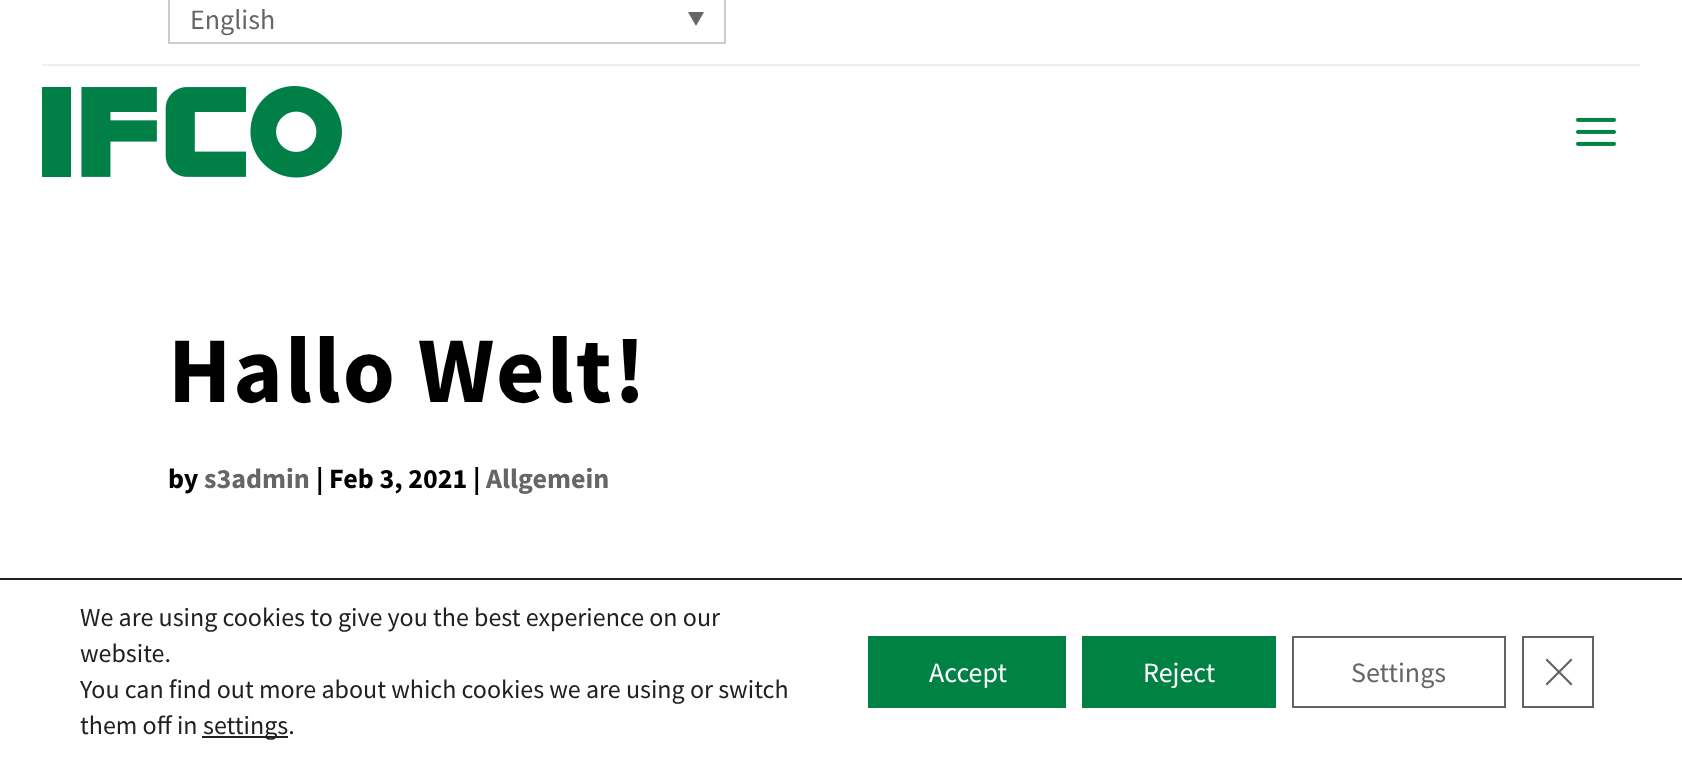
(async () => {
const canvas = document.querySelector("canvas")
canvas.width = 1682
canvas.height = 763
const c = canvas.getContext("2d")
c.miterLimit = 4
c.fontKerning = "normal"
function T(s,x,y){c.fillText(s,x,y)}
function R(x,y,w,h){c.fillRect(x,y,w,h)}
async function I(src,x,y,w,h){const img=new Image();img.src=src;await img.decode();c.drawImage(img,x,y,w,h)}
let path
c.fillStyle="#fff"
R(0,0,1682,763)
c.strokeStyle="#cdcdcd"
c.lineWidth=2
c.strokeRect(169,-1,556,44)
c.font="28px Source Sans Pro"
c.fillStyle="#666"
T("English",190,29)
path = new Path2D("M688 12h16l-8 14z")
c.fill(path)
c.fillStyle="#efefef"
R(42,64,1598,2)
await I("1.png",42,86,300,92)
await I("2.png",1576,117,40,29)
c.letterSpacing="2px"
c.font="bold 94px Source Sans Pro"
c.fillStyle="#000"
T("Hallo Welt!",168,402)
c.letterSpacing="0px"
c.font="bold 28px Source Sans Pro"
T("by",168,488)
c.fillStyle="#666"
T("s3admin",204,488)
c.fillStyle="#000"
T("| Feb 3, 2021 |",316,488)
c.fillStyle="#666"
T("Allgemein",486,488)
c.fillStyle="#202020"
R(0,578,1682,2)
c.font="26px Source Sans Pro"
T("We are using cookies to give you the best experience on our",80,626)
T("website.",80,662)
T("You can find out more about which cookies we are using or switch",80,698)
T("them off in",80,734)
R(202,736,86,2)
T("settings.",203,734)
c.fillStyle="#008244"
R(868,636,198,72)
c.font="28px Source Sans Pro"
c.fillStyle="#fff"
T("Accept",929,682)
c.fillStyle="#008244"
R(1082,636,194,72)
c.fillStyle="#fff"
T("Reject",1143,682)
c.strokeStyle="#636363"
c.strokeRect(1293,637,212,70)
c.fillStyle="#666"
T("Settings",1351,682)
c.strokeStyle="#626262"
c.strokeRect(1523,637,70,70)
c.fillStyle="#626262"
path = new Path2D("M1571 658.5l1.5 1.5l-25.5 25.5l-1.5-1.5z")
c.fill(path)
path = new Path2D("M1545.5 660l1.5-1.5l25.5 25.5l-1.5 1.5z")
c.fill(path)
})()
